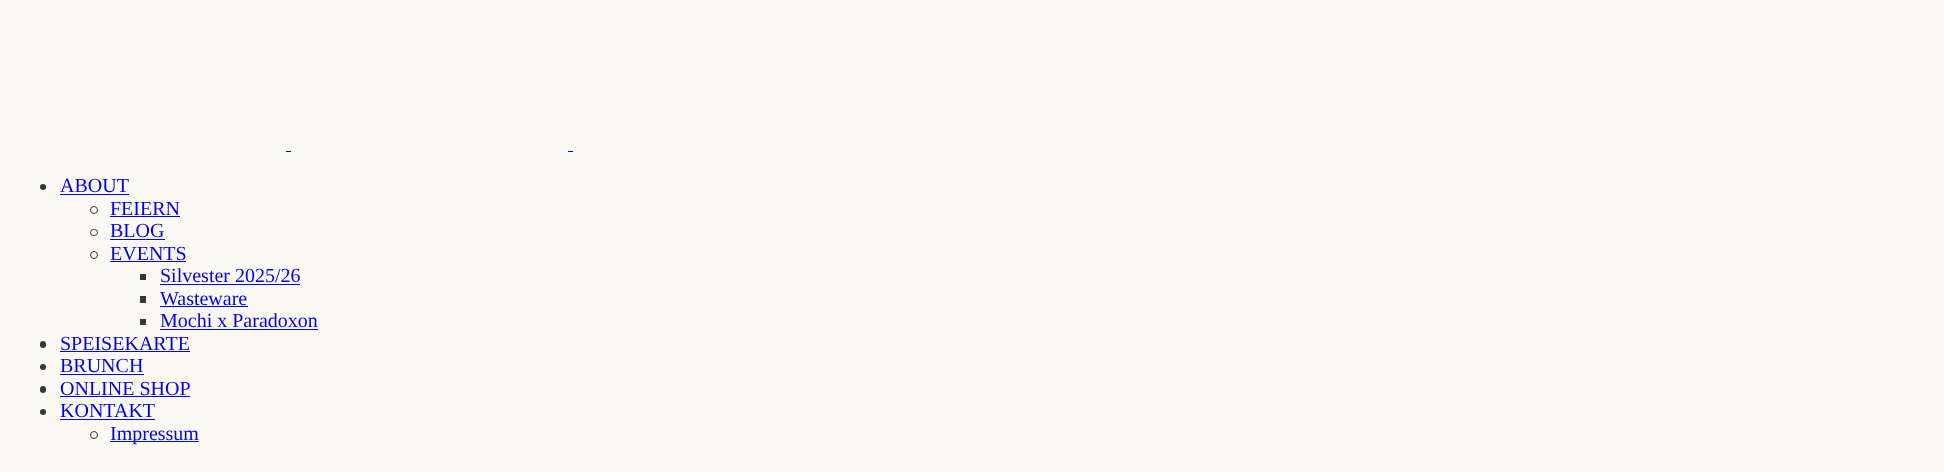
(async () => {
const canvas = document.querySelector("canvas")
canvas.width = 1944
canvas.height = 472
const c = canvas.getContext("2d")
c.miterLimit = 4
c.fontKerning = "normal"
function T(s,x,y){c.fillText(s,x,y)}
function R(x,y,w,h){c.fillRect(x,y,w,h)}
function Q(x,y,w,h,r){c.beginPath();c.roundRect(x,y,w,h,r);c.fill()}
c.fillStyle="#faf9f3"
R(0,0,1944,472)
c.fillStyle="#00e"
R(286,151,5,1)
R(568,151,5,1)
c.fillStyle="#373737"
c.beginPath()
c.arc(43,187,3,0,7)
c.fill()
c.font="20px Liberation Serif"
c.fillStyle="#00e"
T("ABOUT",60,192)
R(60,194,69,1)
c.beginPath()
c.arc(94,210,3.5,0,7)
c.strokeStyle="#373737"
c.stroke()
T("FEIERN",110,215)
R(110,216,70,1)
c.beginPath()
c.roundRect(90.5,229.5,7,6,3)
c.stroke()
T("BLOG",110,237)
R(110,239,55,1)
c.beginPath()
c.arc(94,255,3.5,0,7)
c.stroke()
T("EVENTS",110,260)
R(110,261,76,1)
c.fillStyle="#373737"
R(140,274,6,6)
c.fillStyle="#00e"
T("Silvester 2025/26",160,282)
R(160,284,140,1)
c.fillStyle="#373737"
R(140,296,6,7)
c.fillStyle="#00e"
T("Wasteware",160,305)
R(160,306,88,1)
c.fillStyle="#373737"
R(140,319,6,6)
c.fillStyle="#00e"
T("Mochi x Paradoxon",160,327)
R(160,329,158,1)
c.fillStyle="#373737"
Q(40,341,6,7,3)
c.fillStyle="#00e"
T("SPEISEKARTE",60,350)
R(60,351,130,1)
c.fillStyle="#373737"
c.beginPath()
c.arc(43,367,3,0,7)
c.fill()
c.fillStyle="#00e"
T("BRUNCH",60,372)
R(60,374,84,1)
c.fillStyle="#373737"
Q(40,386,6,7,3)
c.fillStyle="#00e"
T("ONLINE SHOP",60,395)
R(60,396,130,1)
c.fillStyle="#373737"
c.beginPath()
c.arc(43,412,3,0,7)
c.fill()
c.fillStyle="#00e"
T("KONTAKT",60,417)
R(60,419,95,1)
c.beginPath()
c.arc(94,435,3.5,0,7)
c.stroke()
R(110,441,89,1)
T("Impressum",110,440)
})()
